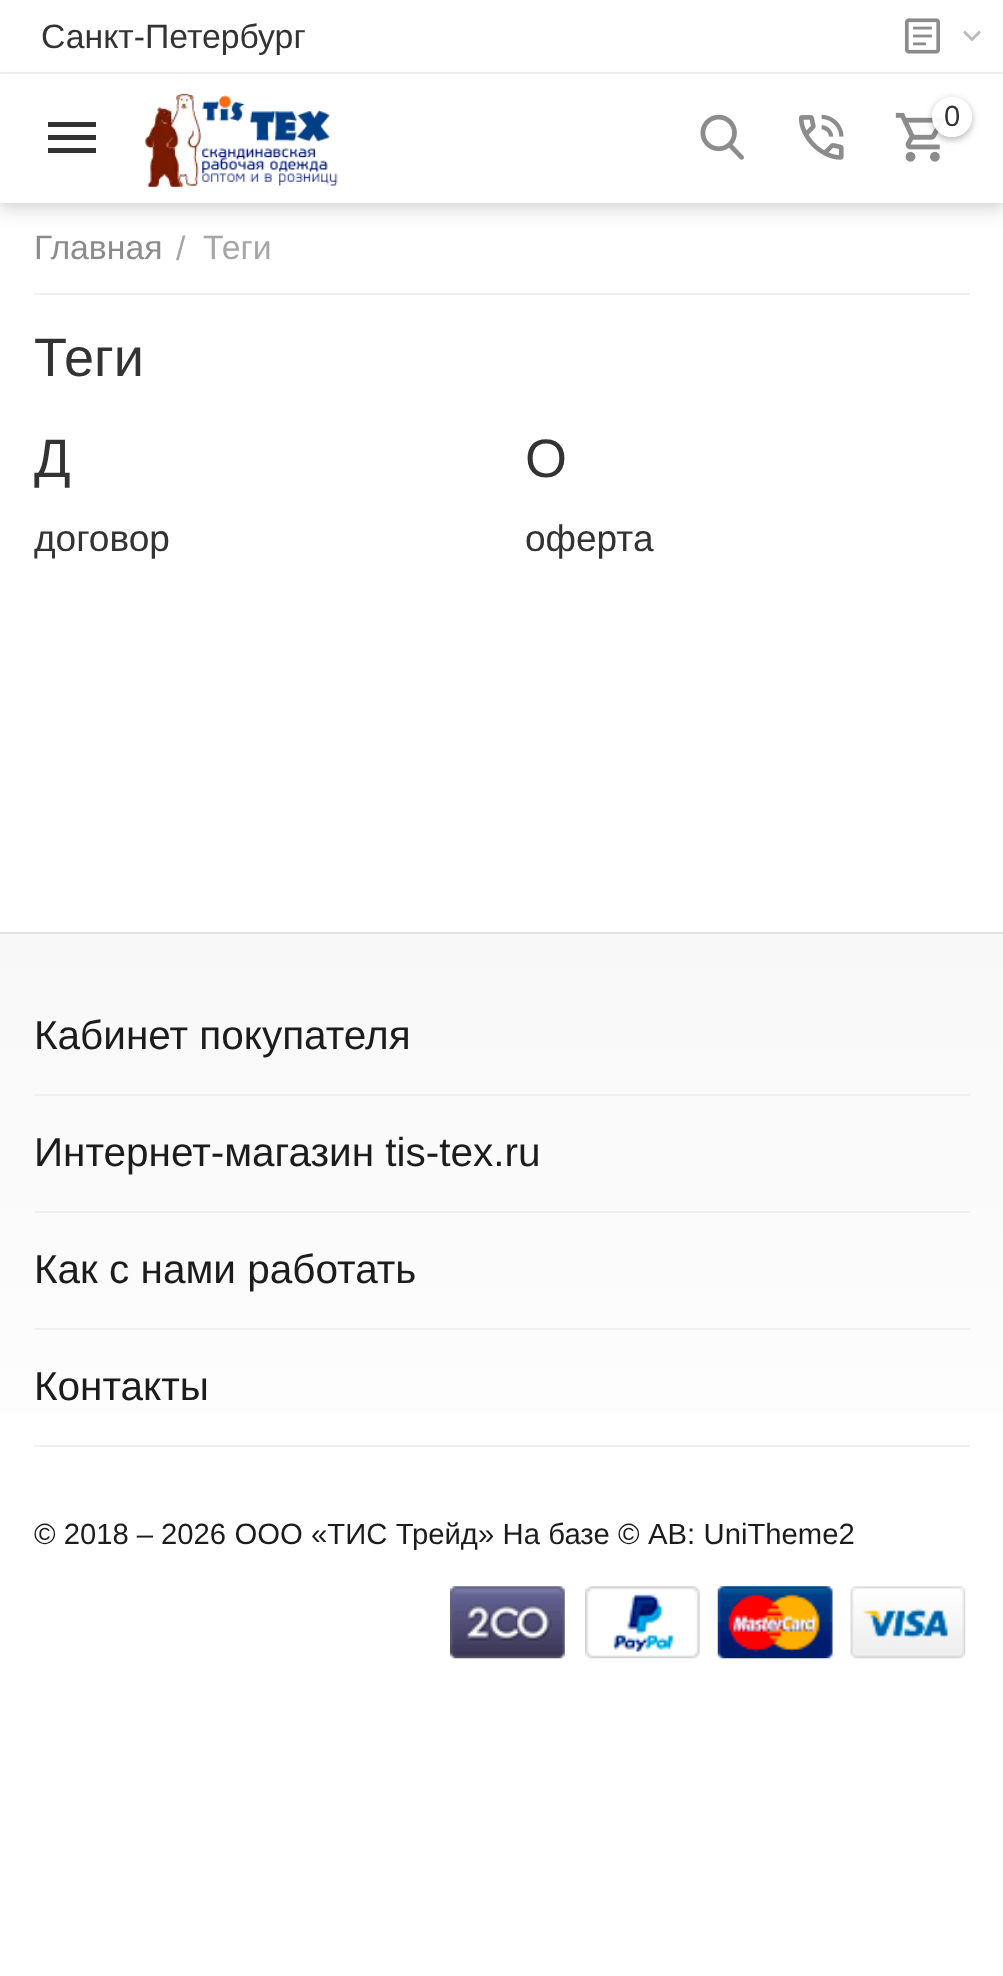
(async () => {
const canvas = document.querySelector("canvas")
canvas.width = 1003
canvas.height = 1976
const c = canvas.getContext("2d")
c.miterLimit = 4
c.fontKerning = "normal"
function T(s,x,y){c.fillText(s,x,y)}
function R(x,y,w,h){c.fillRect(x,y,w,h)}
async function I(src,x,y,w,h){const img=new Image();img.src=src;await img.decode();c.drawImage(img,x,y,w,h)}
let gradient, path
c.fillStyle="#fff"
R(0,0,1003,1976)
c.fillStyle="#f0f0f0"
R(0,72,1003,2)
c.font="33.75px Liberation Sans"
c.fillStyle="#333"
T("Санкт-Петербург",41,48)
await I("1.png",904,18,37,36)
c.fillStyle="#bababa"
path = new Path2D("M979 30.5l-7 7l-7-7l-2 2l9 9l9-9z")
c.fill(path)
c.save()
path = new Path2D("M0 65h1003v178h-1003zm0 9h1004v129h-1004z")
c.clip(path,"evenodd")
c.fillStyle="#0000000d"
c.filter="blur(8px)"
c.beginPath()
c.rect(0,90,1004,128)
c.fill()
c.filter="none"
c.restore()
c.save()
path = new Path2D("M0 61h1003v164h-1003zm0 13h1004v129h-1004z")
c.clip(path,"evenodd")
c.fillStyle="#0000001a"
c.filter="blur(5.5px)"
c.beginPath()
c.rect(0,79,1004,128)
c.fill()
c.filter="none"
c.restore()
c.fillStyle="#333"
path = new Path2D("M48 153h48v-5h-48zm0-13h48v-5h-48zm0-18v5h48v-5z")
c.fill(path)
await I("2.png",144,93,194,94)
await I("3.png",700,114,44,46)
await I("4.png",798,114,46,46)
await I("5.png",895,112,50,50)
c.save()
path = new Path2D("M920 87h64v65h-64zm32 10c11 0 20 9 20 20c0 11-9 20-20 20c-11 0-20-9-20-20c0-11 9-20 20-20z")
c.clip(path,"evenodd")
c.fillStyle="#33333359"
c.filter="blur(3.5px)"
c.beginPath()
c.roundRect(932,99,40,41,20)
c.fill()
c.filter="none"
c.restore()
c.fillStyle="#fffffff2"
c.beginPath()
c.arc(952,117,20,0,7)
c.fill()
c.font="29.25px Liberation Sans"
c.fillStyle="#333"
T("0",944,126)
c.fillStyle="#f0f0f0"
R(34,293,936,2)
c.font="33.75px Liberation Sans"
c.fillStyle="#8c8c8c"
T("Главная",34,259)
c.fillStyle="#a6a6a6"
T("/",176,260)
T("Теги",203,259)
c.font="54px Liberation Sans"
c.fillStyle="#333"
T("Теги",34,376)
T("Д",34,477)
c.font="37px Liberation Sans"
T("договор",34,551)
c.font="54px Liberation Sans"
T("О",525,477)
c.font="37px Liberation Sans"
T("оферта",525,551)
gradient = c.createLinearGradient(502,932,502,1681)
gradient.addColorStop(0,"#f8f8f8")
gradient.addColorStop(1,"#fff")
c.fillStyle = gradient
R(0,934,1003,479)
c.fillStyle="#e3e3e3"
R(0,932,1003,2)
c.fillStyle="#f0f0f0"
R(34,1094,936,2)
c.font="40.5px Liberation Sans"
c.fillStyle="#1c1c1c"
T("Кабинет покупателя",34,1049)
c.fillStyle="#f0f0f0"
R(34,1211,936,2)
c.fillStyle="#1c1c1c"
T("Интернет-магазин tis-tex.ru",34,1166)
c.fillStyle="#f0f0f0"
R(34,1328,936,2)
c.fillStyle="#1c1c1c"
T("Как с нами работать",34,1283)
c.fillStyle="#f0f0f0"
R(34,1445,936,2)
c.fillStyle="#1c1c1c"
T("Контакты",34,1400)
c.font="29.25px Liberation Sans"
T("© 2018 –",34,1544)
c.wordSpacing="0.25px"
T("2026 ООО «ТИС Трейд» На базе © AB: UniTheme2",161,1544)
await I("6.png",450,1586,115,73)
await I("7.png",585,1586,115,73)
await I("8.png",717,1586,116,73)
await I("9.png",850,1586,116,73)
})()
